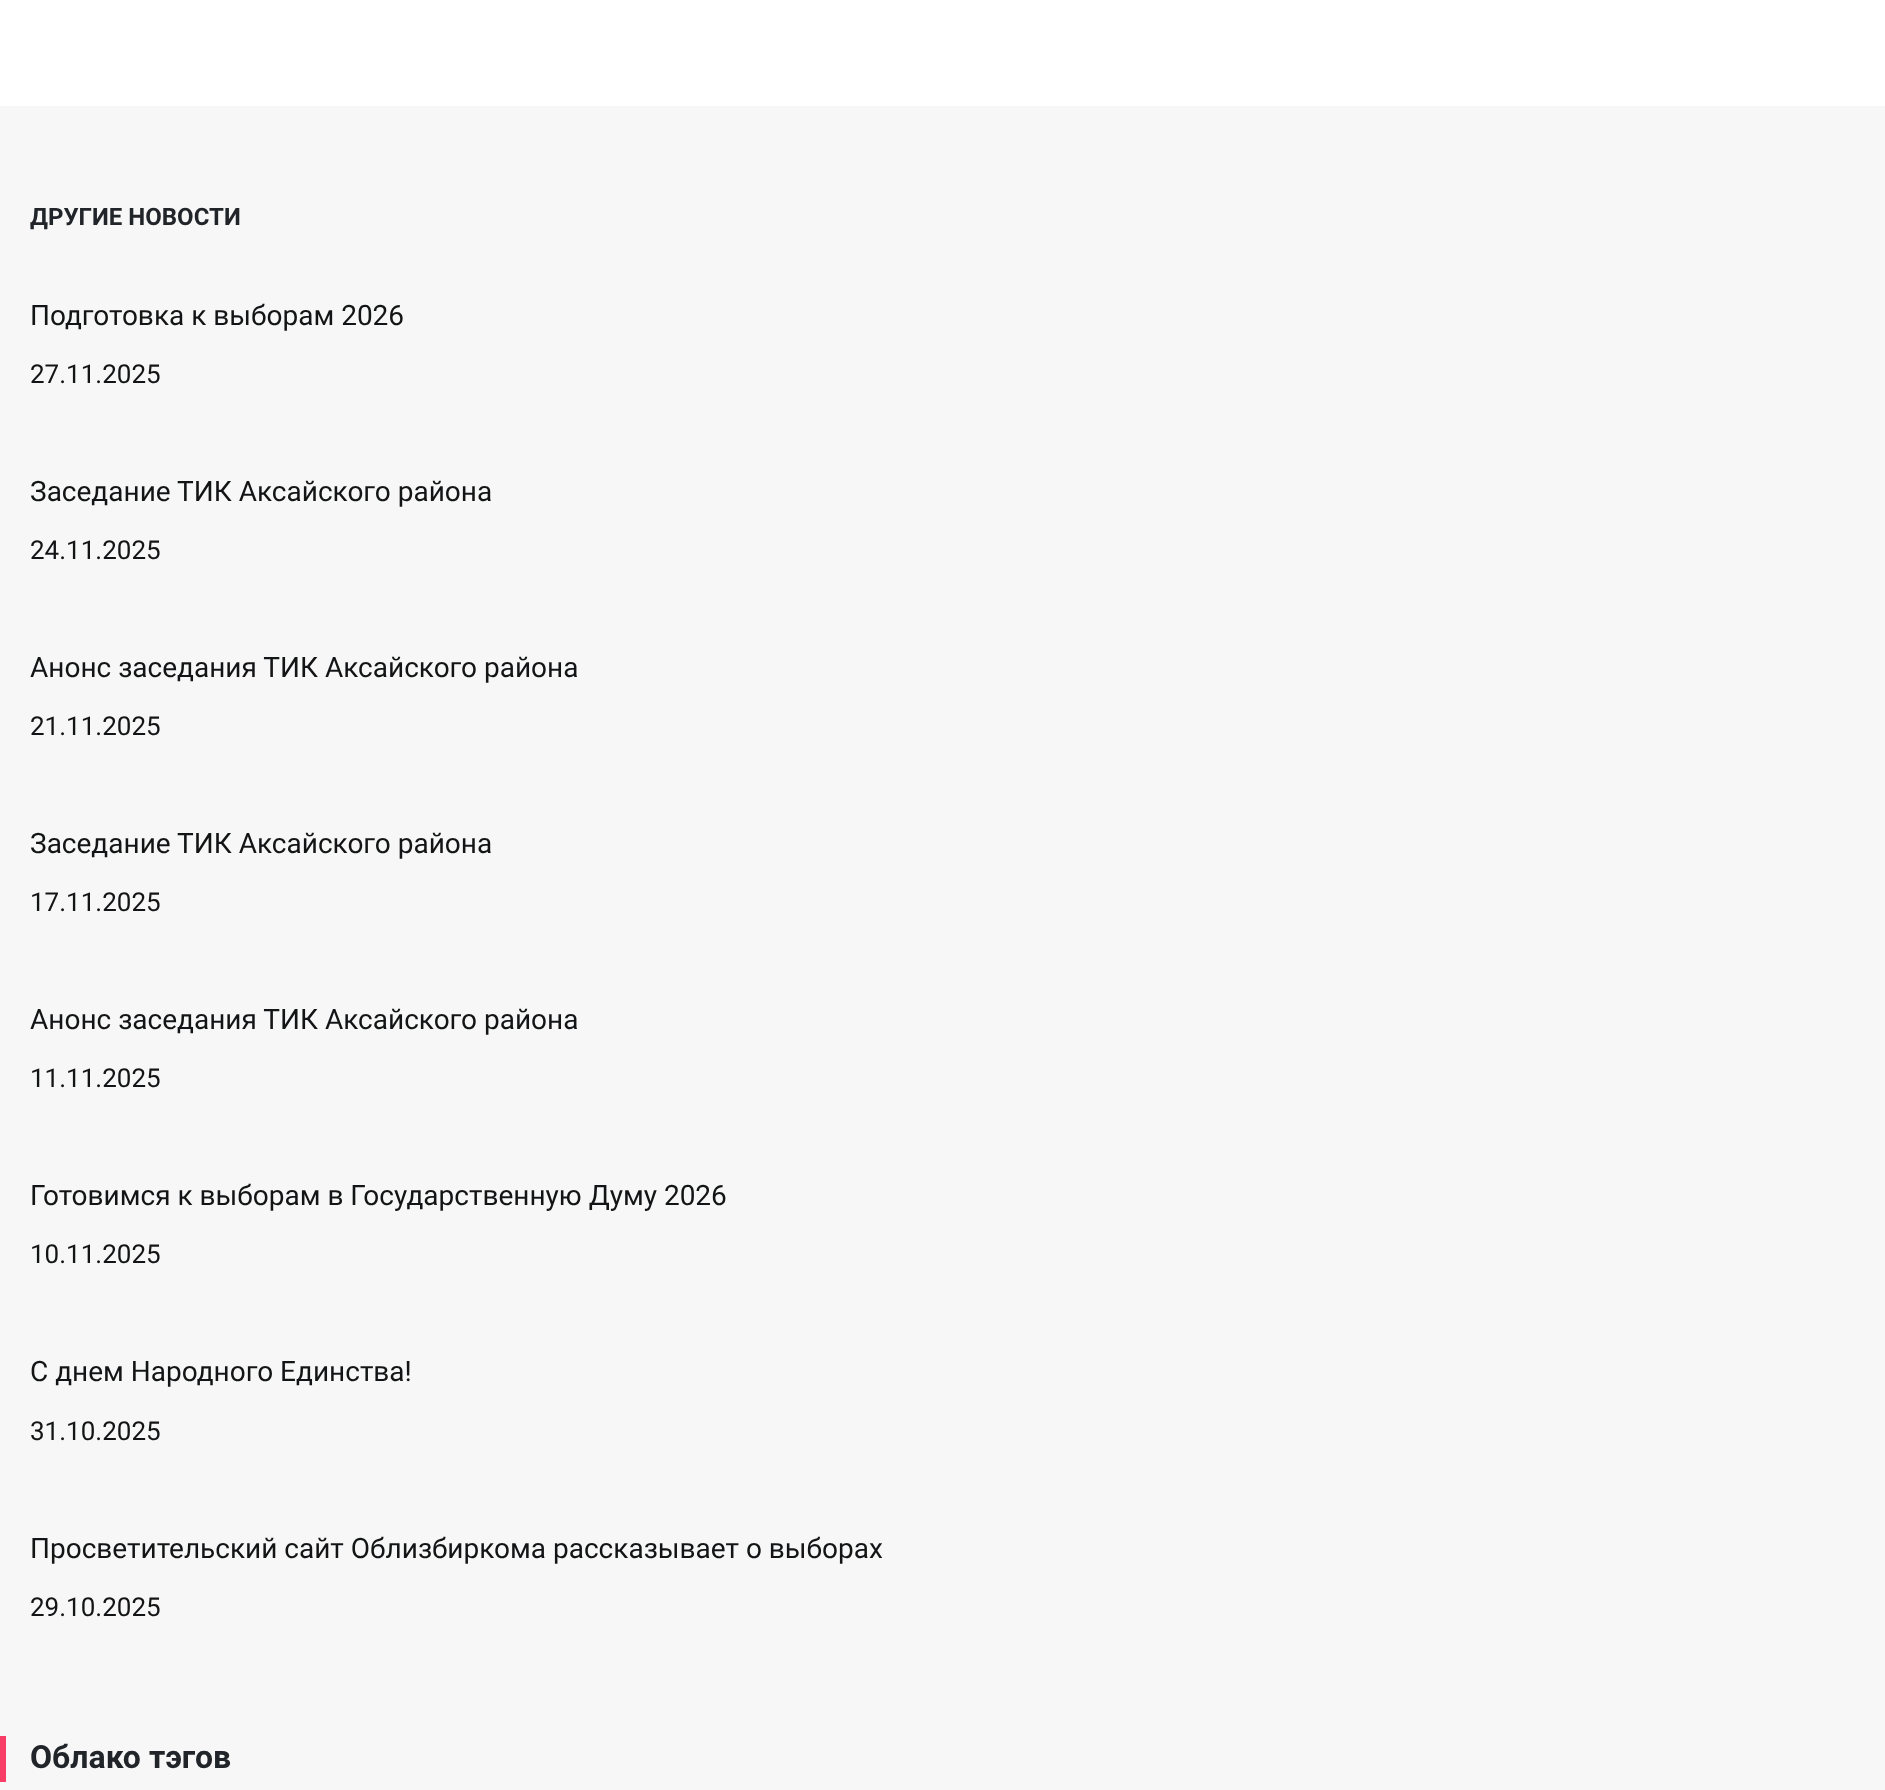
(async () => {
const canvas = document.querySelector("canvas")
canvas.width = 1885
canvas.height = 1790
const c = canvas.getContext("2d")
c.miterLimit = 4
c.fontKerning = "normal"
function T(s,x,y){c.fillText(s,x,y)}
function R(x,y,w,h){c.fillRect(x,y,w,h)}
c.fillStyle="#fff"
R(0,0,1885,1790)
c.fillStyle="#f7f7f7"
R(0,106,1885,1684)
c.font="bold 24px Roboto"
c.fillStyle="#212529"
T("ДРУГИЕ НОВОСТИ",30,225)
c.font="28px Roboto"
c.fillStyle="#131415"
T("Подготовка к выборам 2026",30,325)
c.font="26px Roboto"
T("27.11.2025",30,383)
c.font="28px Roboto"
T("Заседание ТИК Аксайского района",30,501)
c.font="26px Roboto"
T("24.11.2025",30,559)
c.font="28px Roboto"
T("Анонс заседания ТИК Аксайского района",30,677)
c.font="26px Roboto"
T("21.11.2025",30,735)
c.font="28px Roboto"
T("Заседание ТИК Аксайского района",30,853)
c.font="26px Roboto"
T("17.11.2025",30,911)
c.font="28px Roboto"
T("Анонс заседания ТИК Аксайского района",30,1029)
c.font="26px Roboto"
T("11.11.2025",30,1087)
c.font="28px Roboto"
T("Готовимся к выборам в Государственную Думу 2026",30,1205)
c.font="26px Roboto"
T("10.11.2025",30,1263)
c.font="28px Roboto"
T("С днем Народного Единства!",30,1381)
c.font="26px Roboto"
T("31.10.2025",30,1440)
c.font="28px Roboto"
T("Просветительский сайт Облизбиркома рассказывает о выборах",30,1558)
c.font="26px Roboto"
T("29.10.2025",30,1616)
c.fillStyle="#f83d66"
R(0,1736,6,46)
c.font="bold 32px Roboto"
c.fillStyle="#212529"
T("Облако тэгов",30,1768)
})()
